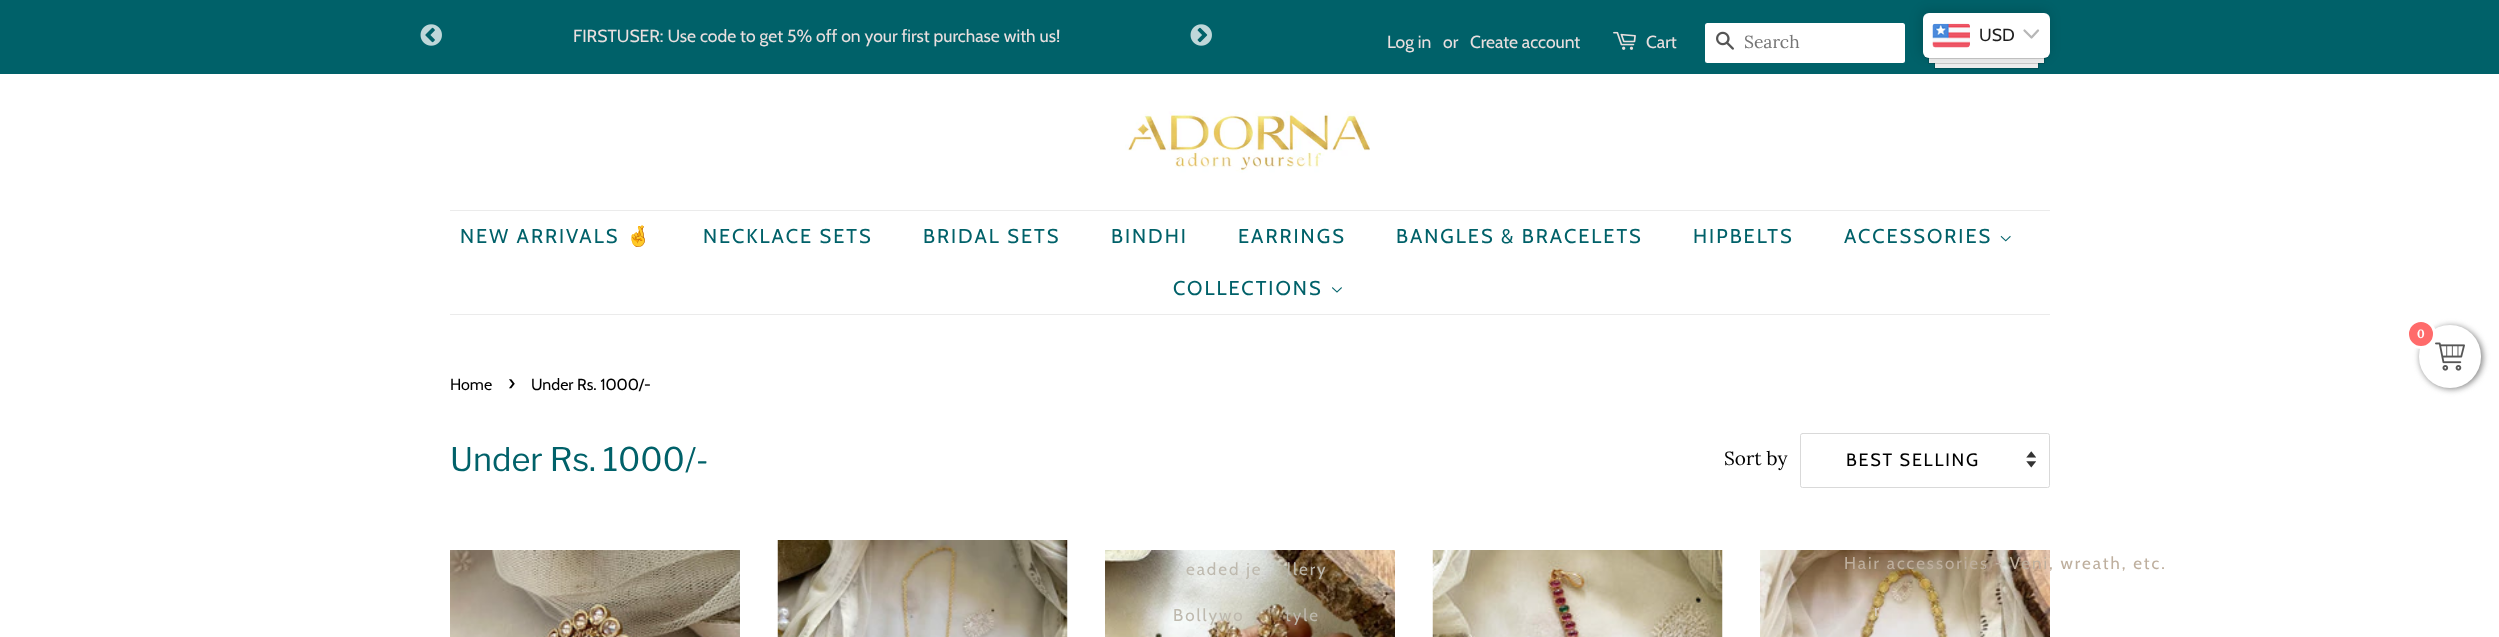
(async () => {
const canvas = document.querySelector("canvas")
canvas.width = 2499
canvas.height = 637
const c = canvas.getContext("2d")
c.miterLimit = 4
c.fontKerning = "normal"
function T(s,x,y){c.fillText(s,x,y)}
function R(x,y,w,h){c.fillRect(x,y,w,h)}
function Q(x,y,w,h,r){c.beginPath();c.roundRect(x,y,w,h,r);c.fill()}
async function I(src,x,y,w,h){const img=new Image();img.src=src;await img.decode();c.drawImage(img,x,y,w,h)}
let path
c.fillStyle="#fff"
R(0,0,2499,637)
c.fillStyle="#006169"
R(0,0,2499,74)
await I("1.png",420,24,22,22)
c.font="17.5px Cabin"
c.fillStyle="#e9dfdf"
T("FIRSTUSER: Use code to get 5% off on your first purchase with us!",573,42)
await I("2.png",1190,24,22,22)
T("Log in",1387,48)
T("or",1443,48)
T("Create account",1470,48)
await I("3.png",1613,31,23,19)
T("Cart",1646,48)
c.fillStyle="#fff"
Q(1705,23,200,40,2.5)
await I("4.png",1716,31,18,19)
c.font="17.5px Lora"
c.fillStyle="#757575"
T("Search",1744,48)
c.fillStyle="#00000026"
c.filter="blur(0.5px)"
c.beginPath()
c.rect(1934,46,105,23)
c.fill()
c.filter="none"
c.fillStyle="#eee"
R(1935,63,103,5)
c.fillStyle="#00000026"
c.filter="blur(0.5px)"
c.beginPath()
c.roundRect(1928,29,117,35,1)
c.fill()
c.filter="none"
c.fillStyle="#eee"
path = new Path2D("M1929 58v5h115v-6z")
c.fill(path)
c.fillStyle="#00000026"
c.filter="blur(0.5px)"
c.beginPath()
c.roundRect(1923,14,127,45,6)
c.fill()
c.filter="none"
c.filter="blur(6px)"
c.beginPath()
c.roundRect(1921,11,128,45,6)
c.fill()
c.filter="none"
c.fillStyle="#fff"
Q(1923,13,127,45,6)
await I("5.png",1932,23,38,25)
c.font="17.5px Cabin"
c.fillStyle="#1e1e1e"
T("USD",1979,41)
path = new Path2D("M2024.5 30.5l7 7l6.5-7")
c.strokeStyle="#b7b7b7"
c.lineWidth=2.3
c.lineCap="round"
c.lineJoin="round"
c.stroke(path)
await I("6.png",1125,111,245,62)
c.fillStyle="#ebebeb"
R(450,210,1600,1)
R(450,314,1600,1)
c.letterSpacing="2px"
c.font="20px Cabin"
c.fillStyle="#006169"
T("NEW ARRIVALS",460,243)
c.font="20px Noto Color Emoji"
T("🤞",626,243)
c.font="20px Cabin"
T("NECKLACE SETS",703,243)
T("BRIDAL SETS",923,243)
T("BINDHI",1111,243)
T("EARRINGS",1238,243)
T("BANGLES & BRACELETS",1396,243)
T("HIPBELTS",1693,243)
T("ACCESSORIES",1844,243)
await I("7.png",2000,235,11,7)
await I("15.png",1760,550,290,87)
c.font="17px Cabin"
c.fillStyle="#beaf9e"
T("Hair accessories - Veni, wreath, etc.",1844,569)
c.fillStyle="#d6ccbe"
T("r",1874,616)
c.font="20px Cabin"
c.fillStyle="#006169"
T("COLLECTIONS",1173,295)
await I("8.png",1332,287,10,6)
await I("13.png",1105,550,290,87)
c.font="17px Cabin"
c.fillStyle="#beb9ae"
T("eaded je",1186,575)
T("llery",1287,575)
T("Bollywo",1173,621)
T("tyle",1285,621)
c.fillStyle="#808080"
c.filter="blur(3px)"
c.beginPath()
c.roundRect(2420,326,63,63,31.5)
c.fill()
c.filter="none"
c.fillStyle="#fff"
Q(2419,325,62,63,31)
await I("9.png",2435,342,30,29)
c.fillStyle="#ff6b6b"
c.beginPath()
c.arc(2421,334,13.5,0,7)
c.fill()
c.strokeStyle="#fff"
c.lineWidth=3
c.stroke()
c.letterSpacing="0px"
c.font="bold 12px Lora"
c.fillStyle="#fff"
T("0",2417,338)
c.font="16px Cabin"
c.fillStyle="#000"
T("Home",450,390)
c.font="22px Cabin"
T("›",508,390)
c.font="16px Cabin"
T("Under Rs. 1000/-",531,390)
c.font="32.5px Libre Franklin"
c.fillStyle="#006169"
T("Under Rs. 1000/-",450,471)
c.font="19px Lora"
c.fillStyle="#000"
T("Sort by",1724,465)
await I("10.png",2026,451,10,17)
c.beginPath()
c.roundRect(1800.5,433.5,249,54,2)
c.strokeStyle="#d9d9d9"
c.lineWidth=1
c.lineJoin="miter"
c.stroke()
c.letterSpacing="1.75px"
c.font="18px Cabin"
T("BEST SELLING",1846,466)
await I("11.png",450,550,290,87)
await I("12.png",777,540,291,97)
await I("14.png",1432,550,291,87)
})()
